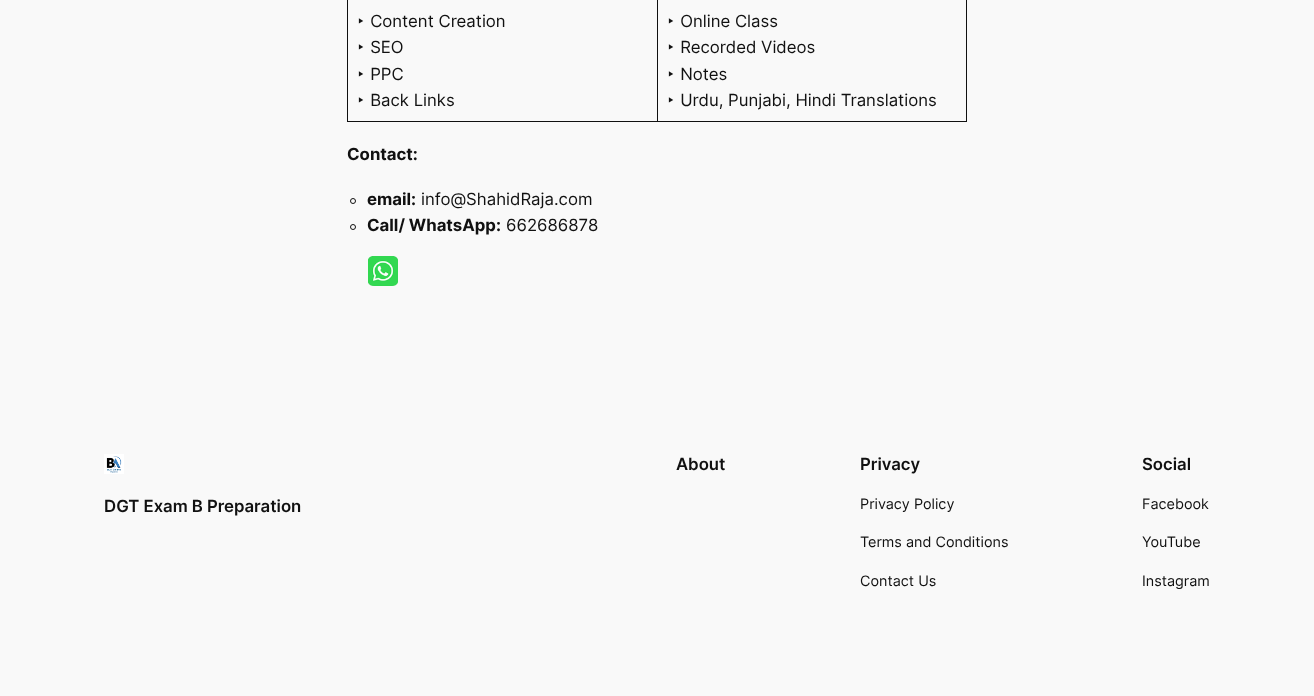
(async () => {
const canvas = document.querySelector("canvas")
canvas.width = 1314
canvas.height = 696
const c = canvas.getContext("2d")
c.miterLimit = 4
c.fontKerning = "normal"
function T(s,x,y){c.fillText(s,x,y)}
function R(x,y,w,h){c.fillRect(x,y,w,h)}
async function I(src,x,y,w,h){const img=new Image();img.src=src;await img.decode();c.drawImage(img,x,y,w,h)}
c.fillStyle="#f9f9f9"
R(0,0,1314,696)
c.fillStyle="#111"
R(966,0,1,122)
R(657,121,310,1)
R(657,0,1,122)
R(347,121,311,1)
R(347,0,1,122)
c.font="16.75px Inter"
T("‣ Content Creation",356,27)
T("‣ SEO",356,53)
T("‣ PPC",356,80)
T("‣ Back Links",356,106)
T("‣ Online Class",666,27)
T("‣ Recorded Videos",666,53)
T("‣ Notes",666,80)
T("‣ Urdu, Punjabi, Hindi Translations",666,106)
c.font="bold 16.75px Inter"
T("Contact:",347,160)
c.beginPath()
c.arc(353,201,2.5,0,7)
c.strokeStyle="#111"
c.stroke()
T("email:",367,205)
c.font="16.75px Inter"
T("info@ShahidRaja.com",421,205)
c.beginPath()
c.arc(353,227,2.5,0,7)
c.stroke()
c.font="bold 16.75px Inter"
T("Call/ WhatsApp:",367,231)
c.font="16.75px Inter"
T("662686878",506,231)
await I("1.png",368,256,30,30)
await I("2.png",104,454,20,20)
c.font="600 16.75px Inter"
T("DGT Exam B Preparation",104,512)
T("About",676,470)
T("Privacy",860,470)
c.font="14.4px Inter"
T("Privacy Policy",860,509)
T("Terms and Conditions",860,547)
T("Contact Us",860,586)
c.font="600 16.75px Inter"
T("Social",1142,470)
c.font="14.4px Inter"
T("Facebook",1142,509)
T("YouTube",1142,547)
T("Instagram",1142,586)
})()
